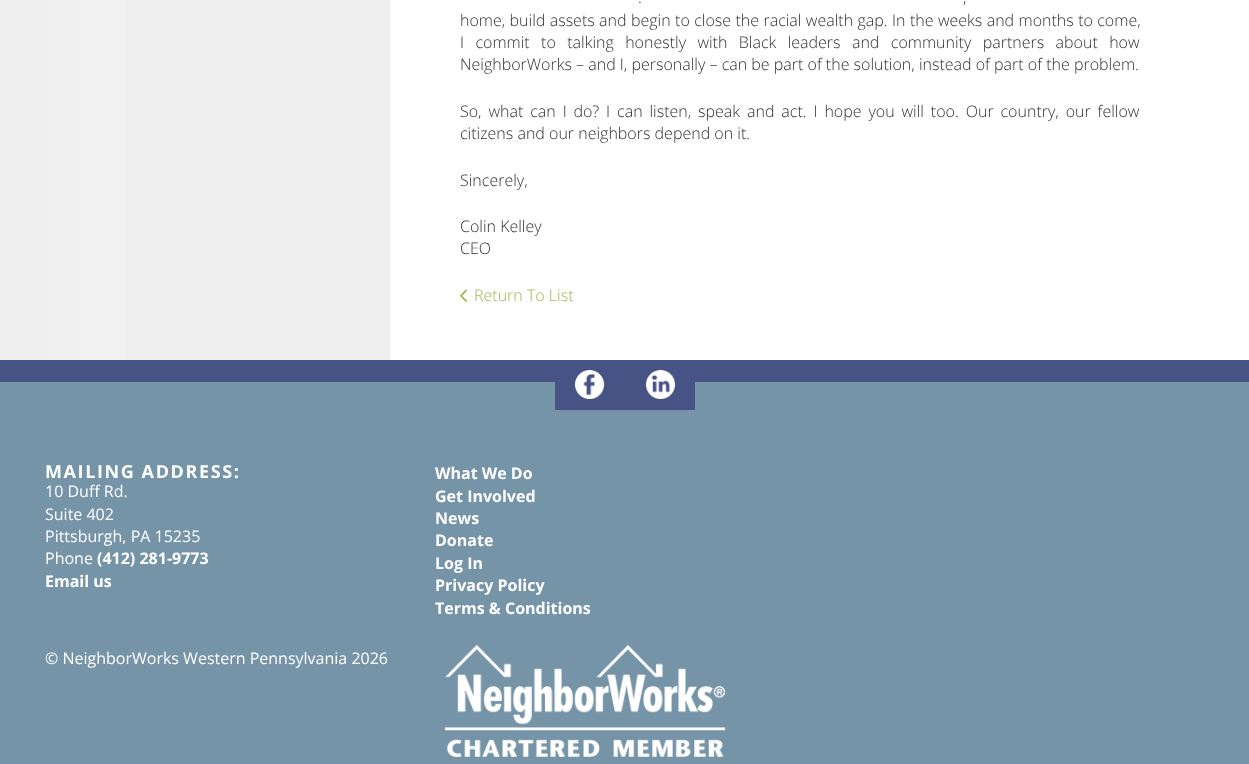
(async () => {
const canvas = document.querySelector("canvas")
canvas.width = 1249
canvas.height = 764
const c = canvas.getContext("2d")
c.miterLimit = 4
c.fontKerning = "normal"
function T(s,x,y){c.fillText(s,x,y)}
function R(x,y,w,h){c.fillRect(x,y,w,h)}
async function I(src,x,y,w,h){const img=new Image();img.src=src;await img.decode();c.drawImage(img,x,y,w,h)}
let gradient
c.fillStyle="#fff"
R(0,0,1249,764)
gradient = c.createLinearGradient(0,-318,1249,-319)
gradient.addColorStop(.02,"#efefef")
gradient.addColorStop(.53,"#fff")
c.fillStyle = gradient
R(0,0,563,360)
c.fillStyle="#efefef"
R(125,0,265,360)
c.fillStyle="#fff"
R(390,0,173,360)
c.wordSpacing="1px"
c.font="300 16px Open Sans"
c.fillStyle="#303030"
T(".",638,3)
T(",",963,3)
c.wordSpacing="0.25px"
T("home, build assets and begin to close the racial wealth gap. In the weeks and months to come,",460,26)
c.wordSpacing="7.25px"
T("I commit to talking honestly with Black leaders and community partners about how",460,48)
c.wordSpacing="0px"
T("NeighborWorks – and I, personally – can be part of the solution, instead of part of the problem.",460,70)
c.wordSpacing="2.75px"
T("So, what can I do? I can listen, speak and act. I hope you will too. Our country, our fellow",460,117)
c.wordSpacing="0px"
T("citizens and our neighbors depend on it.",460,139)
T("Sincerely,",460,186)
T("Colin Kelley",460,232)
T("CEO",460,254)
await I("1.png",460,289,7,13)
c.fillStyle="#9fb752"
T("Return To List",474,301)
c.fillStyle="#475285"
R(0,360,1249,22)
c.fillStyle="#7694a7"
R(0,382,1249,382)
c.fillStyle="#475285"
R(555,382,140,28)
await I("2.png",575,370,30,29)
await I("3.png",646,370,29,29)
c.letterSpacing="1.6px"
c.font="bold 18px Open Sans"
c.fillStyle="#fff"
T("MAILING ADDRESS:",45,478)
c.letterSpacing="0px"
c.font="16px Open Sans"
T("10 Duff Rd.",45,497)
T("Suite 402",45,520)
T("Pittsburgh, PA 15235",45,542)
T("Phone",45,564)
c.font="bold 16px Open Sans"
T("(412) 281-9773",97,564)
T("Email us",45,587)
c.font="16px Open Sans"
T("© NeighborWorks Western Pennsylvania 2026",45,664)
c.font="bold 16px Open Sans"
T("What We Do",435,479)
T("Get Involved",435,502)
T("News",435,524)
T("Donate",435,546)
T("Log In",435,569)
T("Privacy Policy",435,591)
T("Terms & Conditions",435,614)
await I("4.png",445,645,280,112)
})()
